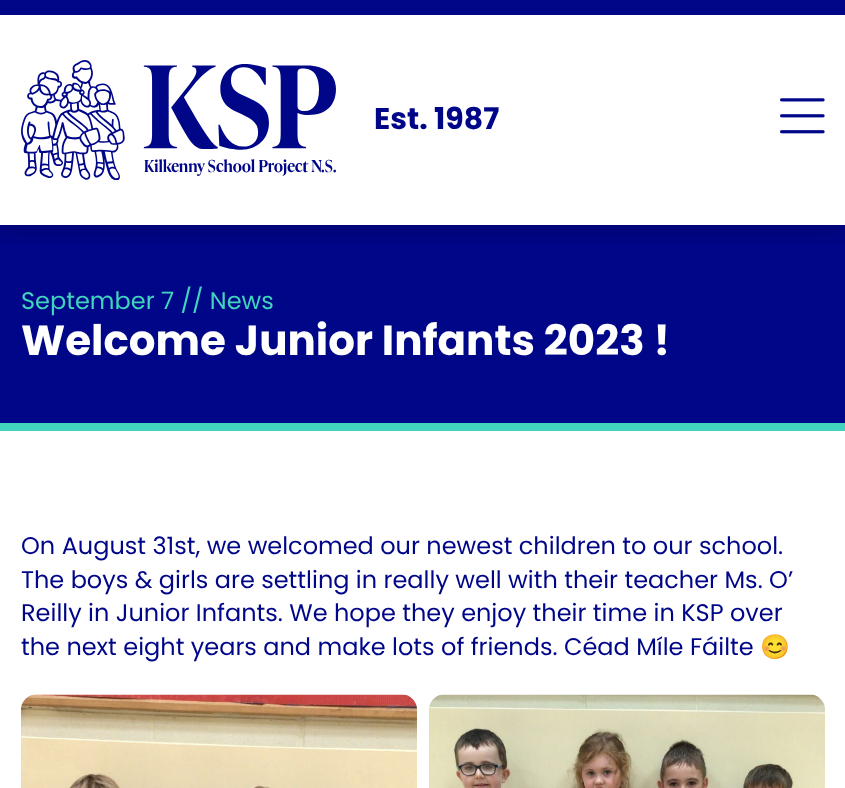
(async () => {
const canvas = document.querySelector("canvas")
canvas.width = 845
canvas.height = 788
const c = canvas.getContext("2d")
c.miterLimit = 4
c.fontKerning = "normal"
function T(s,x,y){c.fillText(s,x,y)}
function R(x,y,w,h){c.fillRect(x,y,w,h)}
async function I(src,x,y,w,h){const img=new Image();img.src=src;await img.decode();c.drawImage(img,x,y,w,h)}
c.fillStyle="#fff"
R(0,0,845,788)
c.fillStyle="#000688"
R(0,225,845,198)
c.save()
c.beginPath()
c.rect(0,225,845,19)
c.clip()
c.fillStyle="#00000033"
c.filter="blur(11px)"
c.beginPath()
c.rect(0,5,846,225)
c.fill()
c.filter="none"
c.restore()
R(0,0,845,15)
await I("1.png",21,60,315,120)
c.font="bold 30px Poppins"
T("Est. 1987",374,129)
await I("2.png",780,98,45,36)
c.fillStyle="#41d3bd"
R(0,423,845,8)
c.font="24px Poppins"
T("September 7 // News",21,309)
c.font="bold 42px Poppins"
c.fillStyle="#fff"
T("Welcome Junior Infants 2023 !",21,355)
c.font="24px Poppins"
c.fillStyle="#000688"
T("On August 31st, we welcomed our newest children to our school.",21,554)
T("The boys & girls are settling in really well with their teacher Ms. O’",21,588)
T("Reilly in Junior Infants. We hope they enjoy their time in KSP over",21,621)
T("the next eight years and make lots of friends. Céad Míle Fáilte",21,655)
c.font="24px Noto Color Emoji"
T("😊",760,655)
await I("3.png",21,694,396,94)
await I("4.png",429,694,396,94)
})()
